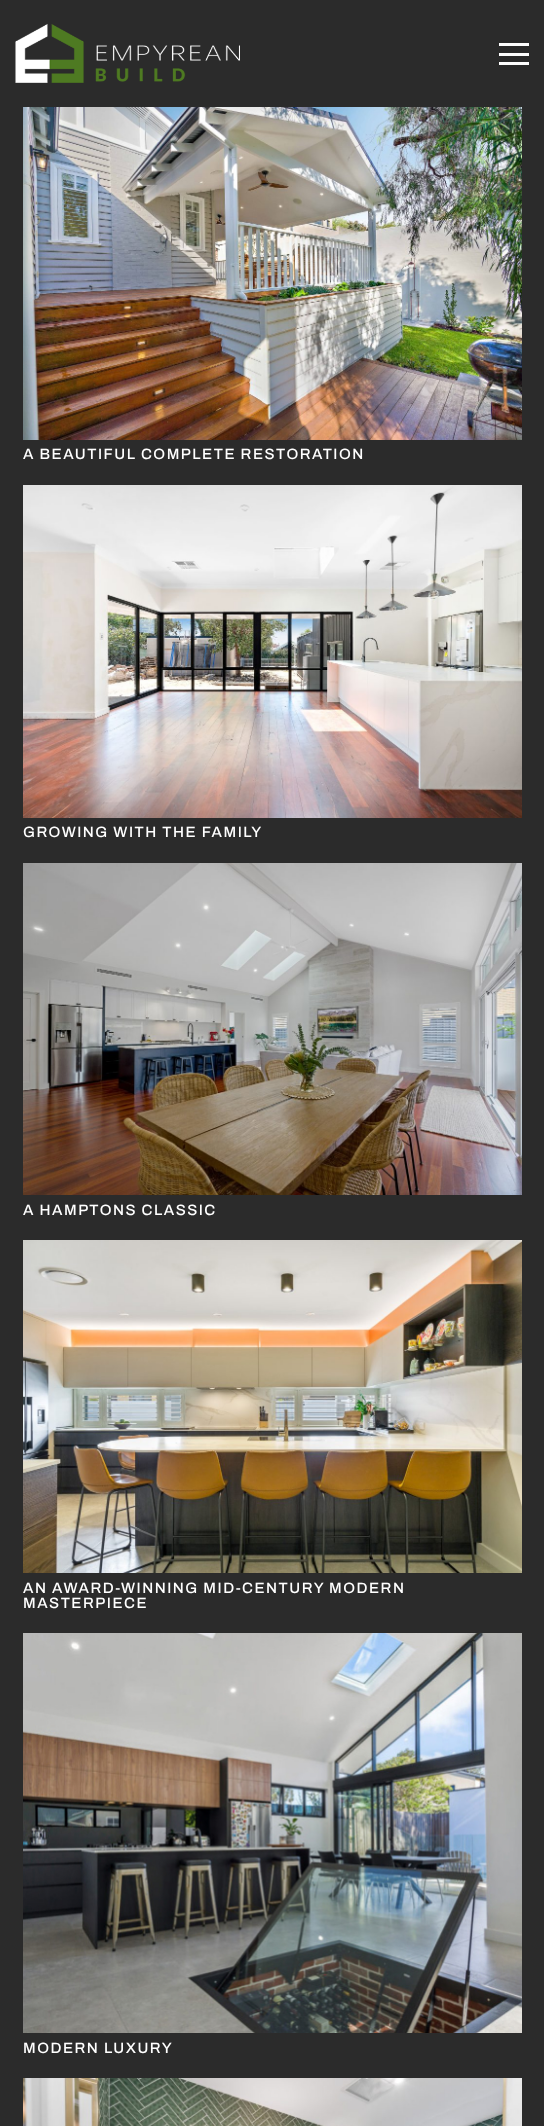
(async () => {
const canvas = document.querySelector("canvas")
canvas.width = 544
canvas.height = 2126
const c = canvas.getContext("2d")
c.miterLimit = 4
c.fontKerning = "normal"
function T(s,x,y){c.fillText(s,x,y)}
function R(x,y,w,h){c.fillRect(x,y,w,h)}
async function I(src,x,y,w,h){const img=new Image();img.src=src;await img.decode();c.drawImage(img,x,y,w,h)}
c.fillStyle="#2b2b2b"
R(0,0,544,2126)
await I("1.png",15,23,225,60)
c.fillStyle="#fff"
R(499,53,30,3)
R(499,43,30,3)
R(499,62,30,3)
await I("2.png",23,107,499,333)
c.letterSpacing="1.5px"
c.font="500 15px Archivo"
T("A BEAUTIFUL COMPLETE RESTORATION",23,459)
await I("3.png",23,485,499,333)
T("GROWING WITH THE FAMILY",23,837)
await I("4.png",23,863,499,332)
T("A HAMPTONS CLASSIC",23,1215)
await I("5.png",23,1240,499,333)
T("AN AWARD-WINNING MID-CENTURY MODERN",23,1593)
T("MASTERPIECE",23,1608)
await I("6.png",23,1633,499,400)
T("MODERN LUXURY",23,2053)
await I("7.png",23,2078,499,48)
})()
